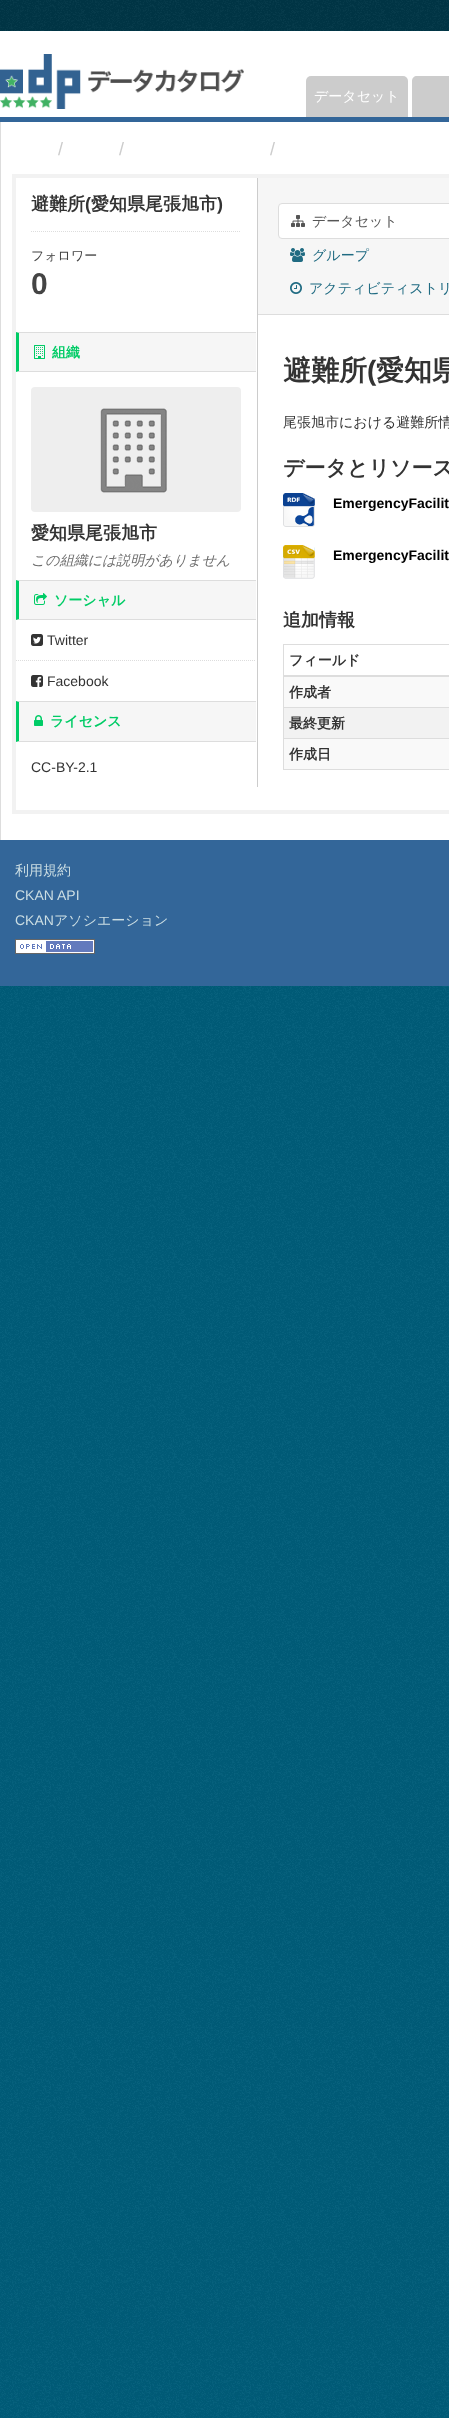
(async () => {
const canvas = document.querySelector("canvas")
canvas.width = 449
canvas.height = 2418
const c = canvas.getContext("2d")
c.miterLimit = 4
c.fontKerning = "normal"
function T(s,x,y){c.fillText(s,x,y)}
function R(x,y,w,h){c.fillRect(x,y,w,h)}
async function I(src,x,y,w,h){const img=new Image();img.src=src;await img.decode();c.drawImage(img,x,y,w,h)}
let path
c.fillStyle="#005d7a"
R(0,0,449,2418)
await I("1.png",0,986,449,1432)
c.fillStyle="#003647"
R(0,0,449,31)
await I("2.png",0,0,449,31)
c.fillStyle="#fff"
R(0,31,449,86)
await I("3.png",0,54,244,55)
c.fillStyle="#ccc"
c.beginPath()
c.roundRect(306,76,102,41,[5,5,0,0])
c.fill()
c.font="500 14px WenQuanYi Zen Hei"
c.fillStyle="#fff"
T("データセット",314,101)
c.fillStyle="#ccc"
path = new Path2D("M417 76h32c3 0 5 2 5 5v36h-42v-36c0-3 2-5 5-5z")
c.fill(path)
c.fillStyle="#369"
R(0,117,449,5)
c.fillStyle="#fff"
R(1,122,448,718)
c.fillStyle="#ddd"
R(0,122,1,718)
c.font="18px Liberation Sans"
c.fillStyle="#ccc"
T("/",58,155)
T("/",119,155)
T("/",270,155)
c.strokeStyle="#f2f2f2"
c.lineWidth=4
c.strokeRect(14,176,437,636)
R(257,178,1,609)
c.font="bold 18px WenQuanYi Zen Hei"
c.fillStyle="#333"
T("避難所",31,210)
c.font="bold 18px Liberation Sans"
T("(",85,210)
c.font="bold 18px WenQuanYi Zen Hei"
T("愛知県尾張旭市",91,210)
c.font="bold 18px Liberation Sans"
T(")",217,210)
path = new Path2D("M31 231.5h210")
c.strokeStyle="#ddd"
c.lineWidth=1
c.setLineDash([1,1])
c.stroke(path)
c.font="500 13px WenQuanYi Zen Hei"
c.fillStyle="#444"
T("フォロワー",31,260)
c.font="bold 30px Liberation Sans"
T("0",31,294)
c.fillStyle="#f6f6f6"
R(16,332,240,40)
c.fillStyle="#ddd"
path = new Path2D("M16 332h240v1h-237z")
c.fill(path)
path = new Path2D("M256 372h-240l3-1h237z")
c.fill(path)
c.fillStyle="#0c6"
path = new Path2D("M16 372v-40l3 1v38z")
c.fill(path)
await I("4.png",34,345,11,14)
c.font="bold 14px WenQuanYi Zen Hei"
T("組織",52,357)
await I("5.png",31,387,210,125)
c.font="bold 18px WenQuanYi Zen Hei"
c.fillStyle="#333"
T("愛知県尾張旭市",31,539)
c.font="italic 500 14px WenQuanYi Zen Hei"
c.fillStyle="#6e6e6e"
T("この組織には説明がありません",31,565)
c.fillStyle="#f6f6f6"
R(16,580,240,40)
c.fillStyle="#ddd"
path = new Path2D("M16 580h240v1h-237z")
c.fill(path)
path = new Path2D("M256 620h-240l3-1h237z")
c.fill(path)
c.fillStyle="#0c6"
path = new Path2D("M16 620v-40l3 1v38z")
c.fill(path)
await I("6.png",34,593,13,12)
c.font="bold 14px WenQuanYi Zen Hei"
T("ソーシャル",54,605)
path = new Path2D("M16 660.5h240")
c.stroke(path)
await I("7.png",31,634,12,12)
c.font="14px Liberation Sans"
c.fillStyle="#333"
T("Twitter",47,645)
await I("8.png",31,675,12,12)
T("Facebook",47,686)
c.fillStyle="#f6f6f6"
R(16,701,240,41)
c.fillStyle="#ddd"
path = new Path2D("M16 701h240v1h-237z")
c.fill(path)
path = new Path2D("M256 742h-240l3-1h237z")
c.fill(path)
c.fillStyle="#0c6"
path = new Path2D("M16 742v-41l3 1v39z")
c.fill(path)
await I("9.png",34,715,9,11)
c.font="bold 14px WenQuanYi Zen Hei"
T("ライセンス",50,726)
c.font="14px Liberation Sans"
c.fillStyle="#333"
T("CC-BY-2.1",31,772)
c.fillStyle="#f6f6f6"
R(258,178,191,136)
c.fillStyle="#ddd"
R(258,314,191,1)
c.fillStyle="#fff"
c.beginPath()
c.roundRect(278.5,203.5,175,35,3.5)
c.fill()
c.setLineDash([])
c.stroke()
await I("10.png",291,215,14,12)
c.font="500 14px WenQuanYi Zen Hei"
c.fillStyle="#555"
T("データセット",312,226)
await I("11.png",290,248,15,14)
c.fillStyle="#206b82"
T("グループ",312,260)
await I("12.png",290,282,12,12)
T("アクティビティストリ",309,293)
c.font="bold 28px WenQuanYi Zen Hei"
c.fillStyle="#333"
T("避難所",283,380)
c.font="bold 28px Liberation Sans"
T("(",367,380)
c.font="bold 28px WenQuanYi Zen Hei"
T("愛知県",376,380)
c.font="500 14px WenQuanYi Zen Hei"
T("尾張旭市における避難所情",283,427)
c.font="bold 21px WenQuanYi Zen Hei"
T("データとリソース",283,475)
await I("13.png",283,493,32,34)
c.font="bold 14px Liberation Sans"
c.fillStyle="#000"
T("EmergencyFacilit",333,508)
await I("14.png",283,545,32,34)
T("EmergencyFacilit",333,560)
c.font="bold 18px WenQuanYi Zen Hei"
c.fillStyle="#333"
T("追加情報",283,626)
c.fillStyle="#ddd"
R(283,644,166,1)
R(283,769,166,1)
R(283,644,1,126)
R(283,675,166,2)
c.font="bold 14px WenQuanYi Zen Hei"
c.fillStyle="#333"
T("フィールド",289,665)
c.fillStyle="#f9f9f9"
R(284,677,165,30)
c.fillStyle="#333"
T("作成者",289,697)
c.fillStyle="#f2f2f2"
R(284,708,165,30)
c.fillStyle="#ddd"
R(283,707,166,1)
c.fillStyle="#333"
T("最終更新",289,728)
c.fillStyle="#f9f9f9"
R(284,739,165,30)
c.fillStyle="#ddd"
R(283,738,166,1)
c.fillStyle="#333"
T("作成日",289,759)
c.fillStyle="#369"
R(0,840,449,146)
c.font="500 14px WenQuanYi Zen Hei"
c.fillStyle="#ccdee3"
T("利用規約",15,875)
c.font="14px Liberation Sans"
T("CKAN API",15,900)
T("CKAN",15,925)
c.font="500 14px WenQuanYi Zen Hei"
T("アソシエーション",54,925)
await I("15.png",15,939,80,15)
})()
